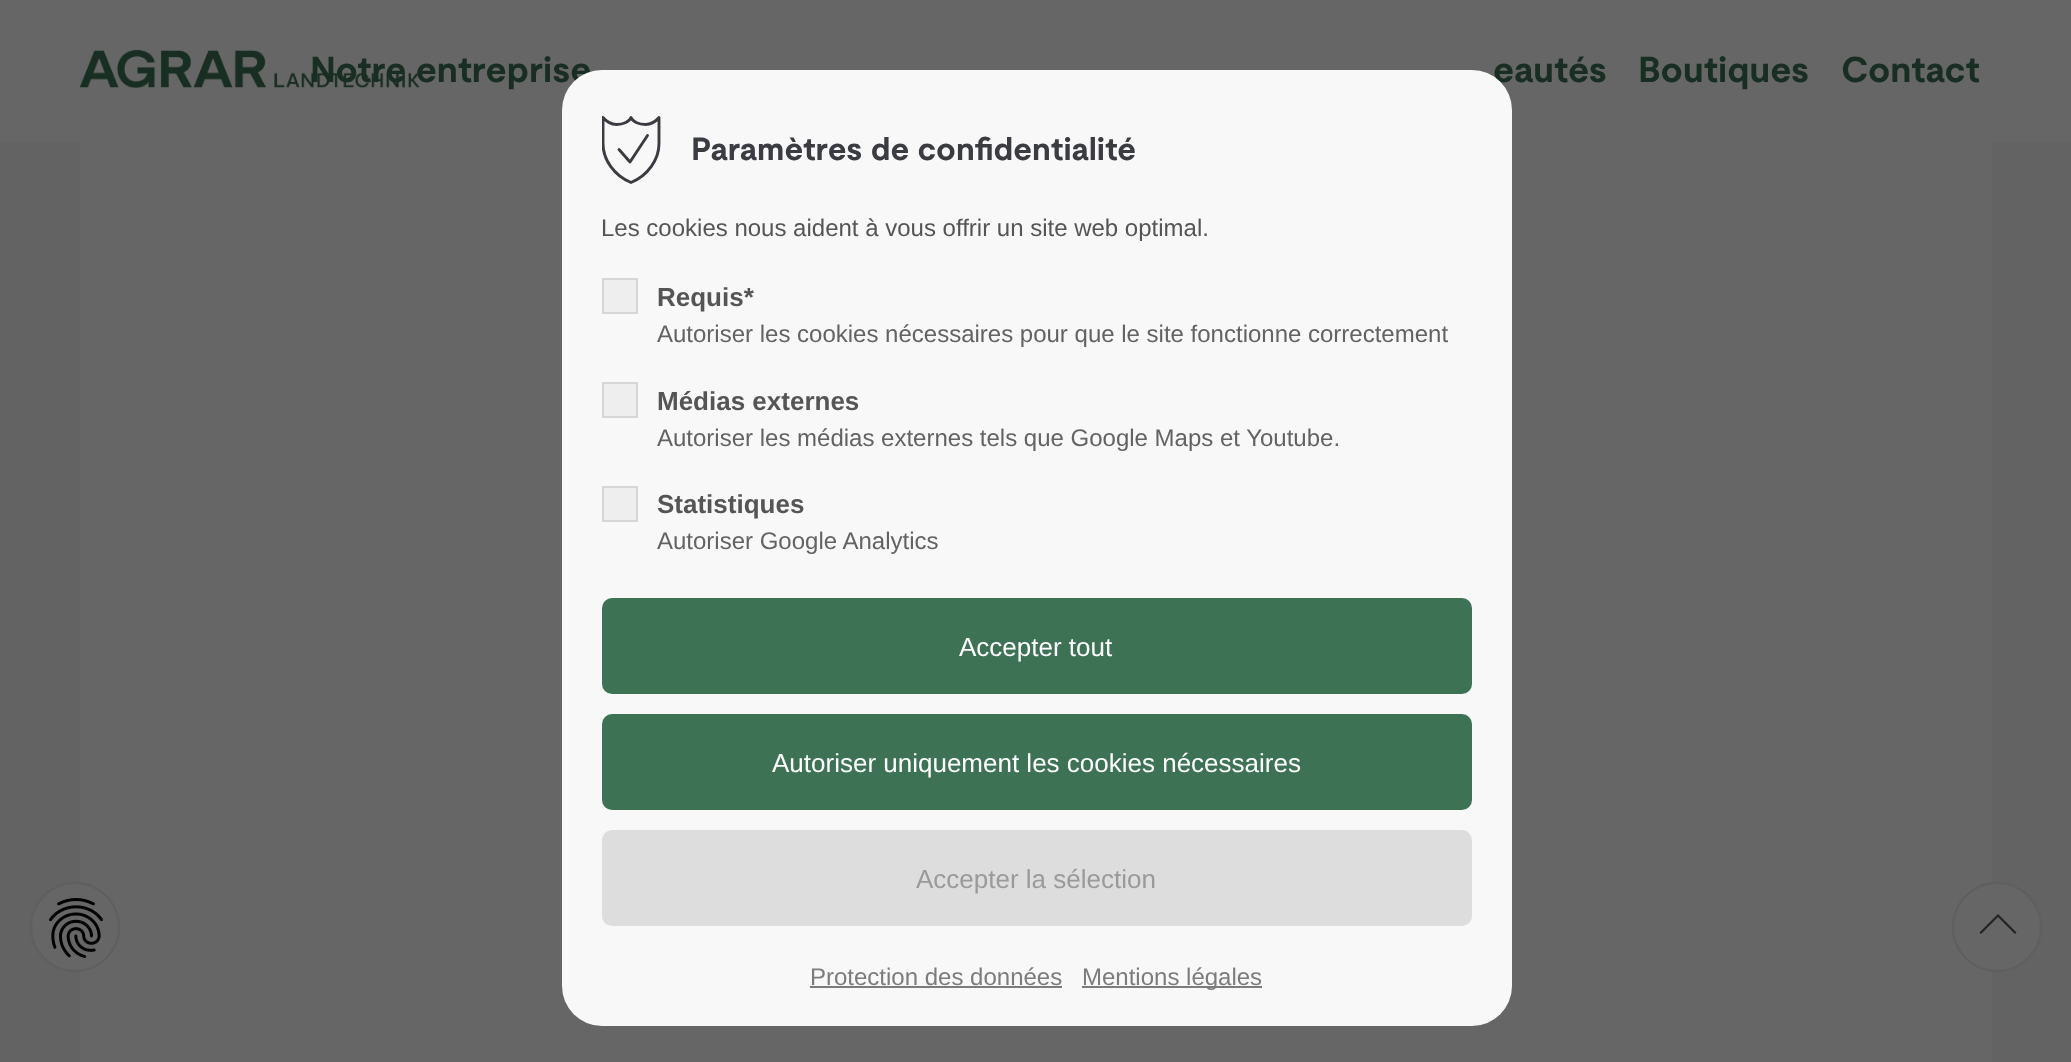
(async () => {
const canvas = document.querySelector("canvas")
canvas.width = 2071
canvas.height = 1062
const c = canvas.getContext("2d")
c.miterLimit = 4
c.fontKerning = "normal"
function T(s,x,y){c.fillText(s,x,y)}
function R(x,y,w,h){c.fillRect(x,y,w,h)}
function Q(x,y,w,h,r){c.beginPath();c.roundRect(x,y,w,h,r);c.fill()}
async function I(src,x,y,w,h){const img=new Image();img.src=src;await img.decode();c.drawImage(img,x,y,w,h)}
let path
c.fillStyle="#636363"
R(0,0,2071,1062)
c.fillStyle="#666"
R(0,0,2071,142)
await I("1.png",80,49,340,40)
c.font="bold 36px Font"
c.fillStyle="#182e22"
T("Notre entreprise",310,82)
T("eautés",1493,82)
T("Boutiques",1638,82)
T("Contact",1841,82)
c.fillStyle="#666"
R(80,142,1912,920)
c.beginPath()
c.arc(75,927,45,0,7)
c.fill()
await I("2.png",49,898,54,60)
c.beginPath()
c.arc(75,927,44,0,7)
c.strokeStyle="#5e5f5e"
c.lineWidth=2
c.stroke()
c.fillStyle="#f8f8f8"
Q(562,70,950,956,40)
c.save()
c.beginPath()
c.rect(602,116,60,68)
c.clip()
path = new Path2D("M631 182.5c-17-7-28-23-28-39v-26c2.5 3 7.5 7 13.5 7c7 0 13-3 14.5-7c1.5 4 7.5 7 14.5 7c6 0 11-4 13.5-7v26c0 16-11 32-28 39z")
c.strokeStyle="#3b3c41"
c.lineWidth=2.9
c.lineCap="round"
c.lineJoin="round"
c.stroke(path)
c.restore()
path = new Path2D("M619 149.5l11 12.5l17.5-26.5")
c.strokeStyle="#3b3c41"
c.lineWidth=2.9
c.lineCap="round"
c.lineJoin="round"
c.stroke(path)
c.font="bold 32px Font"
c.fillStyle="#3b3c42"
T("Paramètres de confidentialité",691,160)
c.font="24px Liberation Sans"
c.fillStyle="#555"
T("Les cookies nous aident à vous offrir un site web optimal.",601,236)
c.fillStyle="#eee"
c.beginPath()
c.rect(603,279,34,34)
c.fill()
c.strokeStyle="#d6d6d6"
c.lineWidth=2
c.lineJoin="miter"
c.stroke()
c.font="bold 26px Liberation Sans"
c.fillStyle="#555"
T("Requis*",657,306)
c.font="24px Liberation Sans"
c.fillStyle="#636363"
T("Autoriser les cookies nécessaires pour que le site fonctionne correctement",657,342)
c.fillStyle="#eee"
c.beginPath()
c.rect(603,383,34,34)
c.fill()
c.stroke()
c.font="bold 26px Liberation Sans"
c.fillStyle="#555"
T("Médias externes",657,410)
c.font="24px Liberation Sans"
c.fillStyle="#636363"
T("Autoriser les médias externes tels que Google Maps et Youtube.",657,446)
c.fillStyle="#eee"
c.beginPath()
c.rect(603,487,34,34)
c.fill()
c.stroke()
c.font="bold 26px Liberation Sans"
c.fillStyle="#555"
T("Statistiques",657,513)
c.font="24px Liberation Sans"
c.fillStyle="#636363"
T("Autoriser Google Analytics",657,549)
c.fillStyle="#3d7354"
Q(602,598,870,96,10)
c.font="26px Liberation Sans"
c.fillStyle="#fff"
T("Accepter tout",959,656)
c.fillStyle="#3d7354"
Q(602,714,870,96,10)
c.fillStyle="#fff"
T("Autoriser uniquement les cookies nécessaires",772,772)
c.fillStyle="#ddd"
Q(602,830,870,96,10)
c.fillStyle="#9a9a9a"
T("Accepter la sélection",916,888)
c.font="24px Liberation Sans"
c.fillStyle="#7c7c7c"
T("Protection des données",810,985)
R(810,986,252,2)
R(1082,986,180,2)
T("Mentions légales",1082,985)
c.fillStyle="#666666e6"
c.beginPath()
c.arc(1997,927,44,0,7)
c.fill()
c.strokeStyle="#5e5f5e"
c.stroke()
c.fillStyle="#222"
path = new Path2D("M2016.5 932.5l-1.5 1.5l-17-17l-17 17l-1.5-1.5l18.5-18.5z")
c.fill(path)
})()
